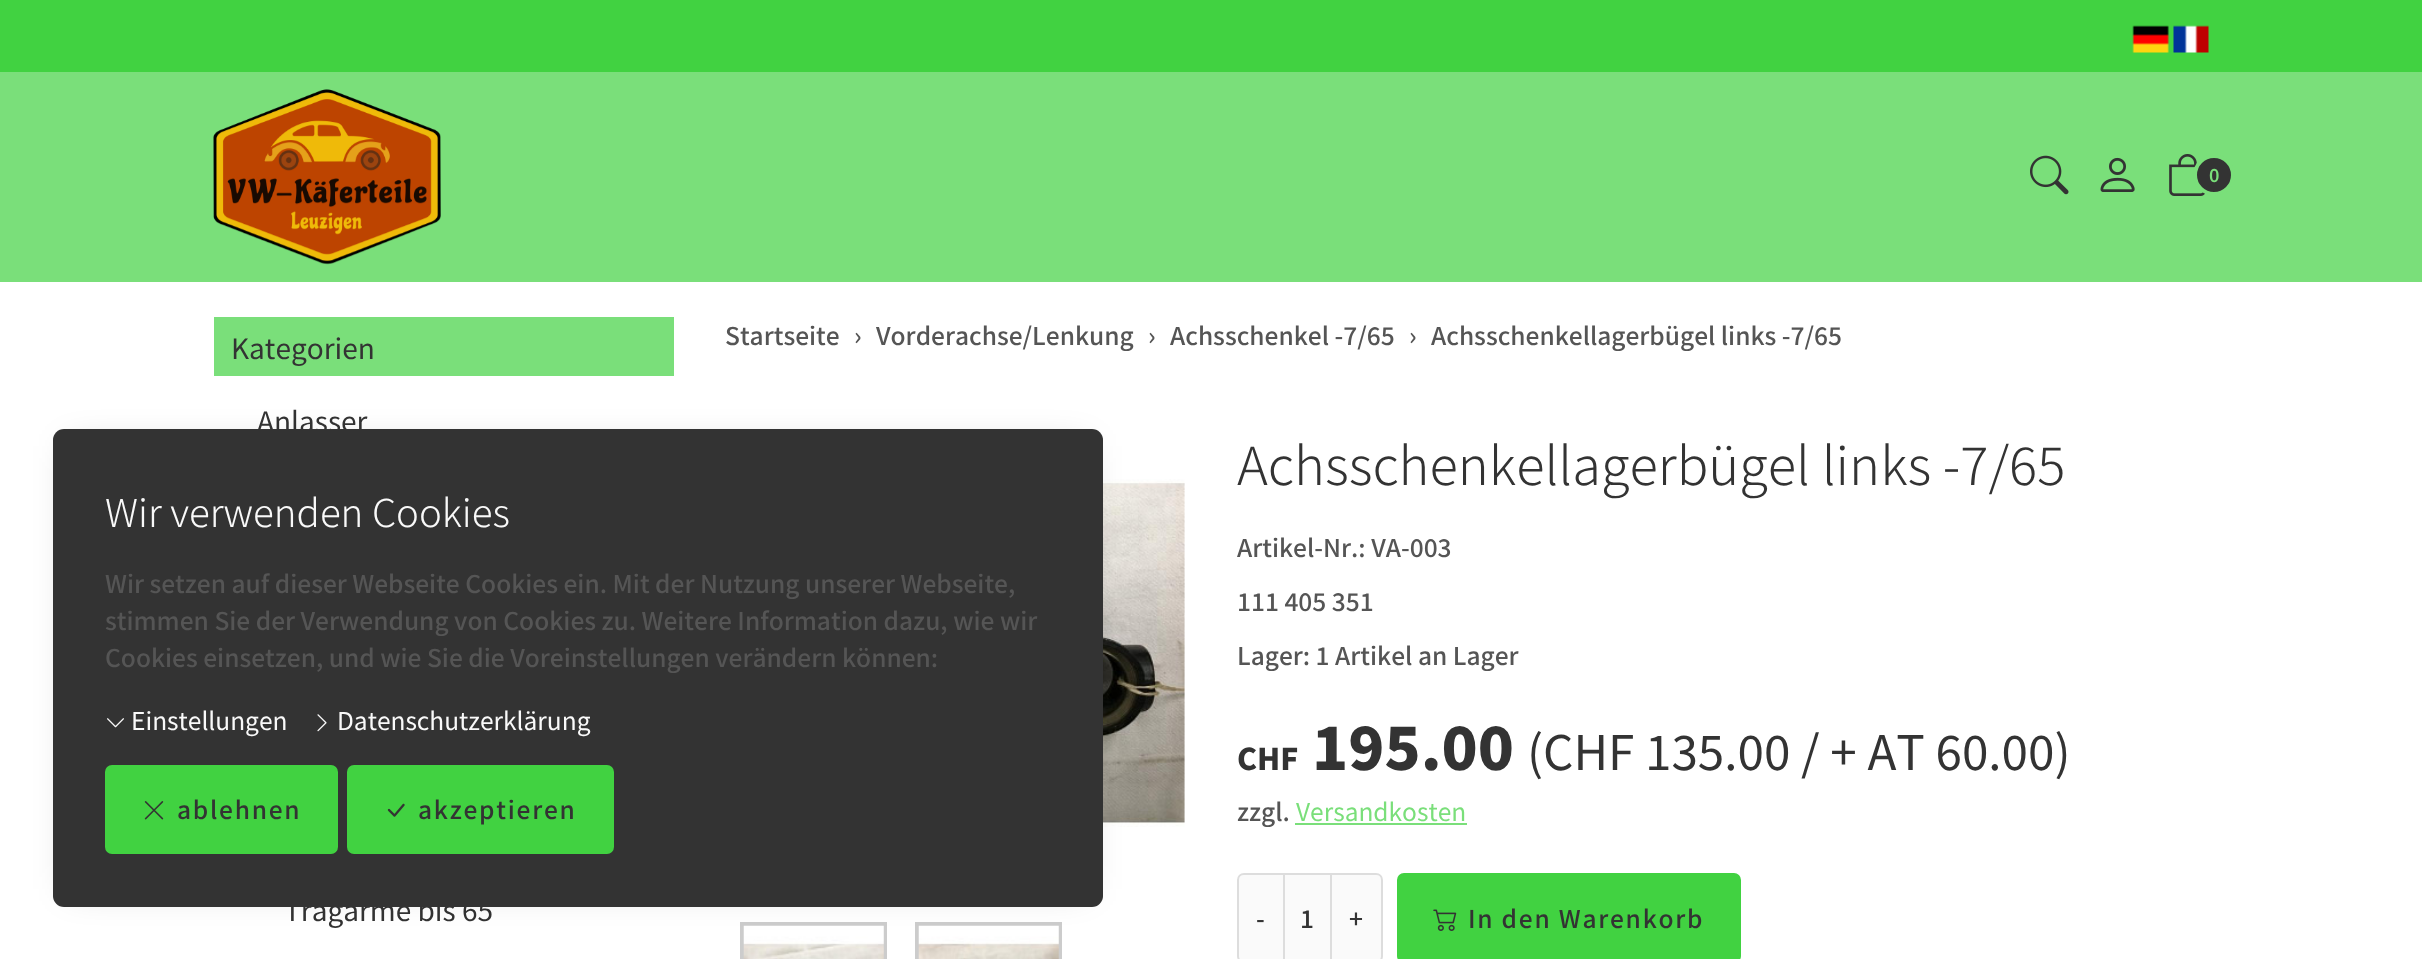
(async () => {
const canvas = document.querySelector("canvas")
canvas.width = 2422
canvas.height = 959
const c = canvas.getContext("2d")
c.miterLimit = 4
c.fontKerning = "none"
function T(s,x,y){c.fillText(s,x,y)}
function R(x,y,w,h){c.fillRect(x,y,w,h)}
function Q(x,y,w,h,r){c.beginPath();c.roundRect(x,y,w,h,r);c.fill()}
async function I(src,x,y,w,h){const img=new Image();img.src=src;await img.decode();c.drawImage(img,x,y,w,h)}
let path
c.fillStyle="#fff"
R(0,0,2422,959)
c.fillStyle="#7adf7a"
R(0,72,2422,210)
c.fillStyle="#41d241"
R(0,0,2422,72)
await I("1.png",2132,25,37,28)
await I("2.png",2173,25,36,28)
await I("3.png",213,89,228,176)
await I("4.png",2030,155,39,40)
await I("5.png",2100,157,35,35)
await I("6.png",2169,154,36,42)
c.fillStyle="#333"
c.beginPath()
c.arc(2214,175,19,0,7)
c.fill()
c.strokeStyle="#7adf7a"
c.lineWidth=4
c.stroke()
c.font="600 18px Noto Sans JP"
c.fillStyle="#7adf7a"
T("0",2209,182)
R(214,317,460,59)
c.font="28px Noto Sans JP"
c.fillStyle="#333"
T("Kategorien",231,359)
T("Anlasser",257,432)
T("Tragarme bis 65",284,921)
c.font="500 24.5px Noto Sans JP"
c.fillStyle="#555"
T("Startseite",725,345)
T("›",854,345)
T("Vorderachse/Lenkung",876,345)
T("›",1148,345)
T("Achsschenkel -7/65",1170,345)
T("›",1409,345)
T("Achsschenkellagerbügel links -7/65",1431,345)
await I("7.png",1103,479,82,348)
c.strokeStyle="#ccc"
c.strokeRect(742,924,143,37)
await I("8.png",743,925,141,34)
c.strokeRect(917,924,143,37)
await I("9.png",918,925,141,34)
c.font="300 52.5px Noto Sans JP"
c.fillStyle="#333"
T("Achsschenkellagerbügel links -7/65",1237,485)
c.font="500 24.5px Noto Sans JP"
c.fillStyle="#555"
T("Artikel-Nr.: VA-003",1237,557)
T("111 405 351",1237,611)
T("Lager: 1 Artikel an Lager",1237,665)
c.font="900 30px Noto Sans JP"
c.fillStyle="#333"
T("CHF",1237,770)
c.font="900 59.5px Noto Sans JP"
T("195.00",1312,770)
c.font="47.6px Noto Sans JP"
T("(CHF 135.00 / + AT 60.00)",1527,770)
c.font="500 24.5px Noto Sans JP"
c.fillStyle="#555"
T("zzgl.",1237,821)
c.font="24.5px Noto Sans JP"
c.fillStyle="#7adf7a"
T("Versandkosten",1296,821)
R(1295,823,172,2)
c.fillStyle="#fafafa"
path = new Path2D("M1244 874h40v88h-40c-3.5 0-6-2.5-6-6v-76c0-3.5 2.5-6 6-6z")
c.fill(path)
c.strokeStyle="#ddd"
c.lineWidth=2
c.stroke(path)
c.font="500 24.5px Noto Sans JP"
c.fillStyle="#333"
T("-",1256,928)
c.fillStyle="#fafafa"
path = new Path2D("M1331 874h45c3.5 0 6 2.5 6 6v76c0 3.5-2.5 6-6 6h-45z")
c.fill(path)
c.stroke(path)
c.beginPath()
c.rect(1284,874,47,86)
c.fill()
c.stroke()
c.fillStyle="#333"
T("1",1300,928)
T("+",1349,928)
c.fillStyle="#41d241"
c.beginPath()
c.roundRect(1398,874,342,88,6)
c.fill()
c.strokeStyle="#41d241"
c.stroke()
await I("10.png",1433,909,24,22)
c.letterSpacing="1.75px"
c.fillStyle="#333"
T("In den Warenkorb",1468,928)
c.fillStyle="#00000033"
c.filter="blur(17.5px)"
c.beginPath()
c.rect(70,446,1015,443)
c.fill()
c.filter="none"
c.fillStyle="#333"
Q(53,429,1050,478,11)
c.letterSpacing="0px"
c.font="300 38.5px Noto Sans JP"
c.fillStyle="#f9f9f9"
T("Wir verwenden Cookies",105,527)
c.font="500 24.5px Noto Sans JP"
c.fillStyle="#555"
T("Wir setzen auf dieser Webseite Cookies ein. Mit der Nutzung unserer Webseite,",105,593)
T("stimmen Sie der Verwendung von Cookies zu. Weitere Information dazu, wie wir",105,630)
T("Cookies einsetzen, und wie Sie die Voreinstellungen verändern können:",105,667)
await I("11.png",107,718,17,10)
c.font="24.5px Noto Sans JP"
c.fillStyle="#f9f9f9"
T("Einstellungen",131,730)
await I("12.png",317,714,10,18)
T("Datenschutzerklärung",337,730)
c.fillStyle="#41d241"
c.beginPath()
c.roundRect(106,766,231,87,6)
c.fill()
c.stroke()
await I("13.png",144,801,20,19)
c.letterSpacing="1.75px"
c.font="500 24.5px Noto Sans JP"
c.fillStyle="#333"
T("ablehnen",177,819)
c.fillStyle="#41d241"
c.beginPath()
c.roundRect(348,766,265,87,6)
c.fill()
c.stroke()
await I("14.png",387,803,18,14)
c.fillStyle="#333"
T("akzeptieren",418,819)
})()
